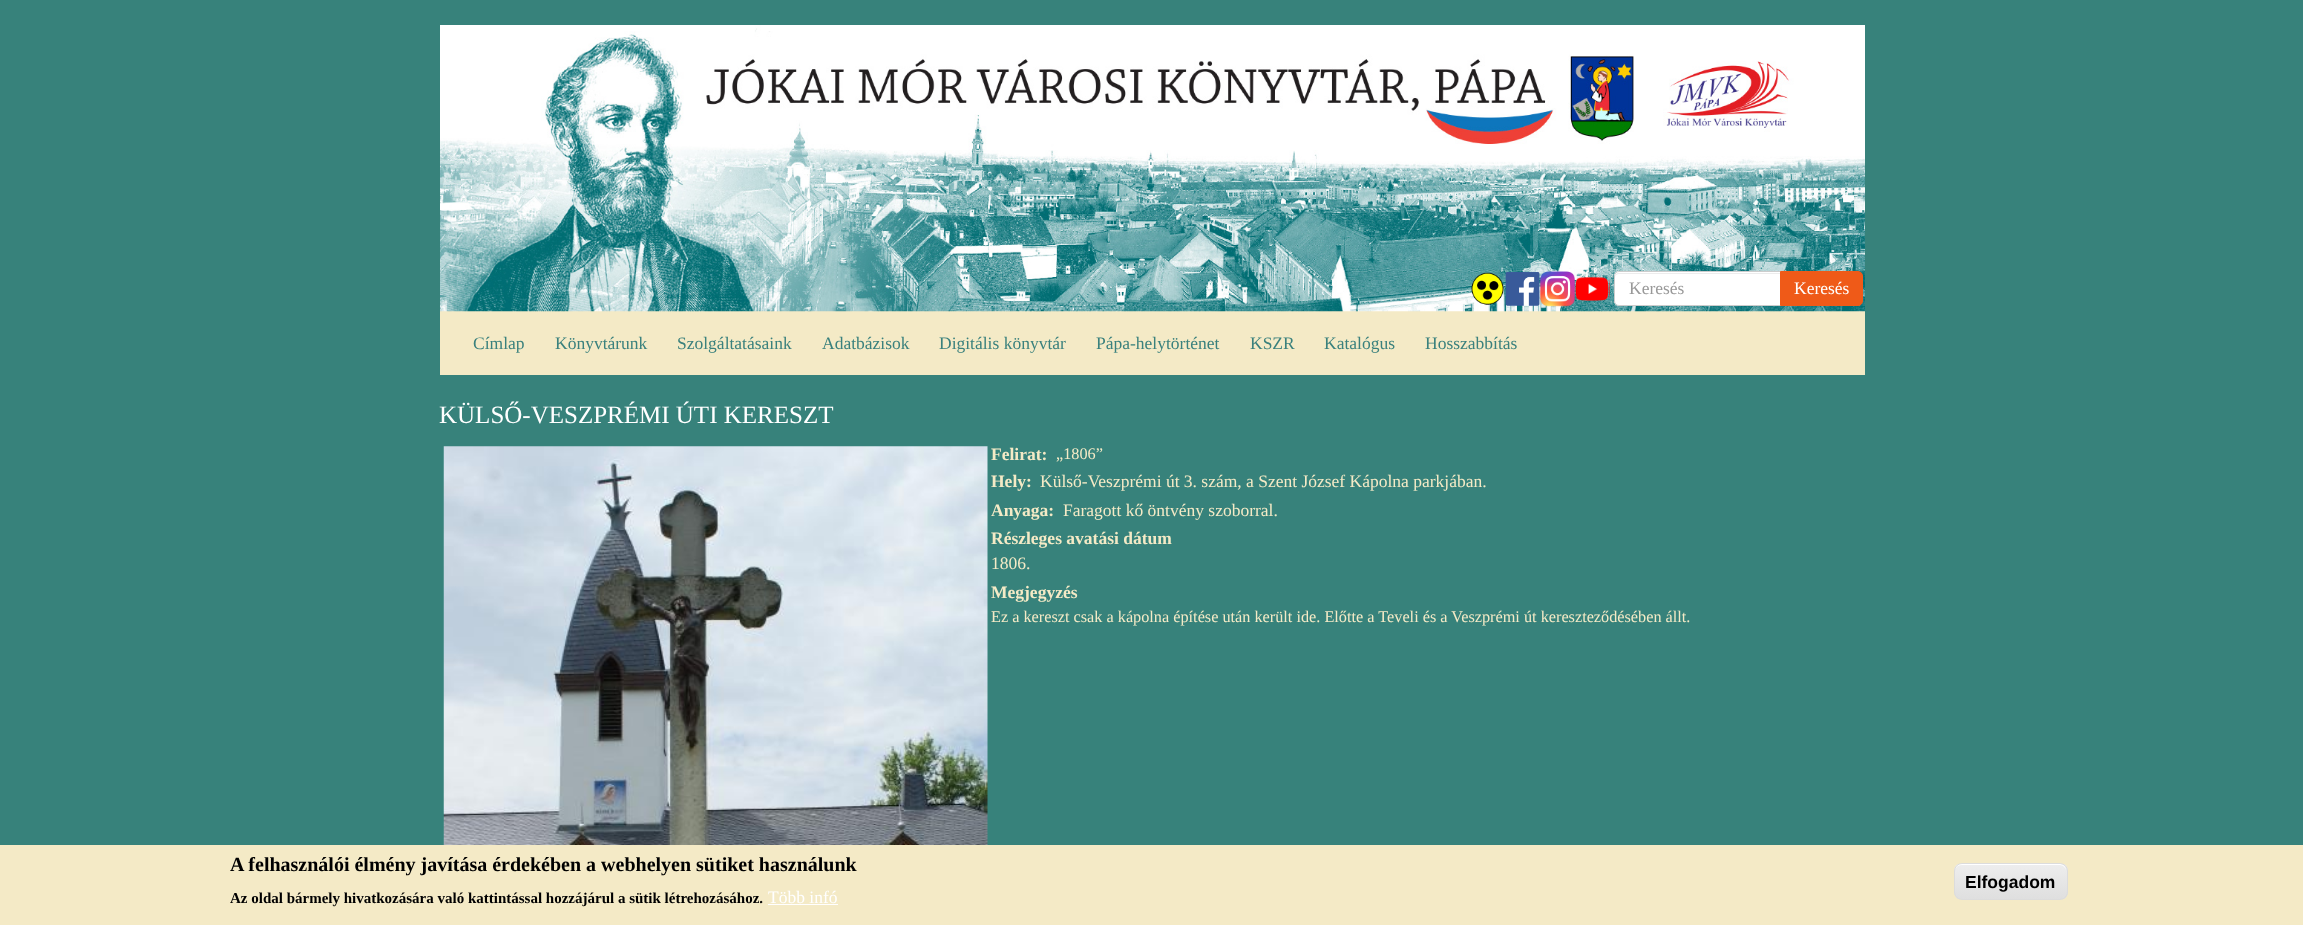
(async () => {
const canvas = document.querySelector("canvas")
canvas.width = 2303
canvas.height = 925
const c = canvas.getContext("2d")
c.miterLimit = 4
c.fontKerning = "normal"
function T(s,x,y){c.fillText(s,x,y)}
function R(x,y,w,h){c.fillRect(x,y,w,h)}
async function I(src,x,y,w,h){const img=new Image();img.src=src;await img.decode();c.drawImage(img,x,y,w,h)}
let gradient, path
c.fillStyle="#37827b"
R(0,0,2303,925)
c.fillStyle="#f4eac6"
R(440,311,1425,64)
await I("1.png",440,25,1425,287)
await I("2.png",1471,272,33,33)
await I("3.png",1505,272,35,34)
await I("4.png",1540,271,35,36)
await I("5.png",1575,276,35,25)
c.fillStyle="#fff"
c.beginPath()
c.roundRect(1614,271,167,35,[5,0,0,5])
c.fill()
c.fillStyle="#ececec"
path = new Path2D("M1619 274h161v-1h-161c-3 0-4 2-4 5c0-3 2-4 4-4z")
c.fill(path)
c.beginPath()
c.roundRect(1614.5,271.5,166,34,[4.5,0,0,4.5])
c.strokeStyle="#ccc"
c.stroke()
c.font="17.5px Liberation Serif"
c.fillStyle="#999"
T("Keresés",1629,294)
c.fillStyle="#ef5a18"
c.beginPath()
c.roundRect(1780.5,271.5,82,34,[0,4.5,4.5,0])
c.fill()
c.strokeStyle="#ef5a18"
c.stroke()
c.fillStyle="#fff"
T("Keresés",1794,294)
c.fillStyle="#3a817d"
T("Címlap",473,349)
T("Könyvtárunk",555,349)
T("Szolgáltatásaink",677,349)
T("Adatbázisok",822,349)
T("Digitális könyvtár",939,349)
T("Pápa-helytörténet",1096,349)
T("KSZR",1250,349)
T("Katalógus",1324,349)
T("Hosszabbítás",1425,349)
c.font="25px Liberation Serif"
c.fillStyle="#fff"
T("KÜLSŐ-VESZPRÉMI ÚTI KERESZT",439,423)
await I("6.png",443,446,545,399)
c.font="bold 17.5px Liberation Serif"
c.fillStyle="#f4eac6"
T("Felirat:",991,460)
c.font="16.25px Liberation Serif"
T("„1806”",1056,459)
c.font="bold 17.5px Liberation Serif"
T("Hely:",991,487)
c.font="17.5px Liberation Serif"
T("Külső-Veszprémi út 3. szám, a Szent József Kápolna parkjában.",1040,487)
c.font="bold 17.5px Liberation Serif"
T("Anyaga:",991,516)
c.font="17.5px Liberation Serif"
T("Faragott kő öntvény szoborral.",1063,516)
c.font="bold 17.5px Liberation Serif"
T("Részleges avatási dátum",991,544)
c.font="17.5px Liberation Serif"
T("1806.",991,569)
c.font="bold 17.5px Liberation Serif"
T("Megjegyzés",991,598)
c.font="16.25px Liberation Serif"
T("Ez a kereszt csak a kápolna építése után került ide. Előtte a Teveli és a Veszprémi út kereszteződésében állt.",991,622)
R(0,845,2303,80)
c.font="bold 20px Liberation Serif"
c.fillStyle="#000"
T("A felhasználói élmény javítása érdekében a webhelyen sütiket használunk",230,871)
c.font="bold 15px Liberation Serif"
T("Az oldal bármely hivatkozására való kattintással hozzájárul a sütik létrehozásához.",230,903)
c.font="17.5px Liberation Serif"
c.fillStyle="#fff"
T("Több infó",768,903)
R(768,904,70,1)
c.save()
c.beginPath()
c.roundRect(1954,863,114,37,8)
c.clip()
gradient = c.createLinearGradient(2011,864,2011,899)
gradient.addColorStop(.05,"#ededed")
gradient.addColorStop(1,"#dfdfdf")
c.fillStyle = gradient
R(1954,864,114,35)
c.restore()
path = new Path2D("M1961 865h99c3 0 6 3 6 6c0-11-16-7-22-7h-66c-7 0-23-4-23 7c0-3 3-6 6-6z")
c.fill(path)
c.beginPath()
c.roundRect(1954.5,863.5,113,36,7.5)
c.strokeStyle="#dcdcdc"
c.stroke()
c.font="bold 17.5px Liberation Sans"
c.fillStyle="#000"
T("Elfogadom",1965,888)
})()
